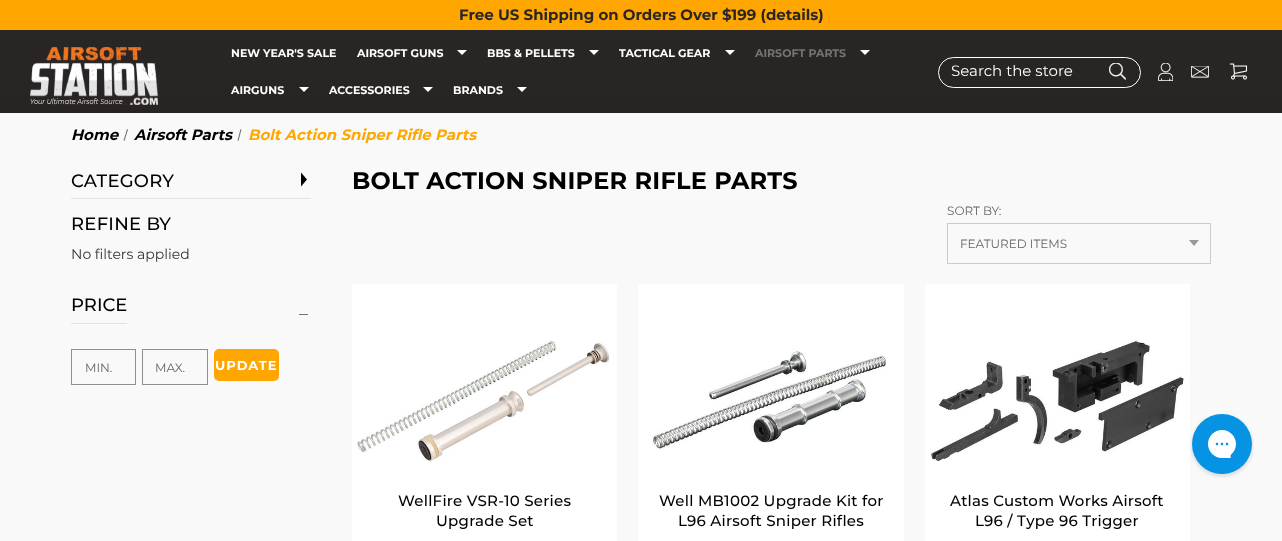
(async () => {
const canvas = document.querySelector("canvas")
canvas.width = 1282
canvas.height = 541
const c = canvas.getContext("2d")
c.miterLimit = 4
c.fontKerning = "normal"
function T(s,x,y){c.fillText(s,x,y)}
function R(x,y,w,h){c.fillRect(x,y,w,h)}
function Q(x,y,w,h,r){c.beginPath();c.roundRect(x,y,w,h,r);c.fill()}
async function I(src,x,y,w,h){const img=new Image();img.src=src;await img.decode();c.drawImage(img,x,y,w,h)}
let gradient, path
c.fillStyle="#f9f9f9"
R(0,0,1282,541)
c.fillStyle="#ffa600"
R(0,0,1282,30)
c.font="bold 15px Montserrat"
c.fillStyle="#292625"
T("Free US Shipping on Orders Over $199 (details)",459,20)
gradient = c.createLinearGradient(641,30,641,113)
gradient.addColorStop(0,"#292625")
gradient.addColorStop(1,"#272423")
c.fillStyle = gradient
R(0,30,1282,83)
await I("1.png",30,47,128,58)
c.font="bold 11px Montserrat"
c.fillStyle="#fff"
T("NEW YEAR'S SALE",231,57)
T("AIRSOFT GUNS",357,57)
path = new Path2D("M457 50h10l-5 5z")
c.fill(path)
T("BBS & PELLETS",487,57)
path = new Path2D("M589 50h10l-5 5z")
c.fill(path)
T("TACTICAL GEAR",619,57)
path = new Path2D("M725 50h10l-5 5z")
c.fill(path)
c.fillStyle="#757575"
T("AIRSOFT PARTS",755,57)
c.fillStyle="#fff"
path = new Path2D("M860 50h10l-5 5z")
c.fill(path)
T("AIRGUNS",231,94)
path = new Path2D("M299 87h10l-5 5z")
c.fill(path)
T("ACCESSORIES",329,94)
path = new Path2D("M423 87h10l-5 5z")
c.fill(path)
T("BRANDS",453,94)
path = new Path2D("M517 87h10l-5 5z")
c.fill(path)
c.beginPath()
c.roundRect(938.5,57.5,202,30,15)
c.strokeStyle="#fff"
c.stroke()
c.font="100 15px Montserrat"
T("Search the store",951,76)
await I("2.png",1109,63,17,17)
await I("3.png",1158,63,15,18)
await I("4.png",1191,66,18,12)
await I("5.png",1229,63,19,17)
c.font="italic bold 15px Montserrat"
c.fillStyle="#000"
T("Home",71,140)
c.fillStyle="#757575"
path = new Path2D("M127 129l1 .5l-3.5 11.5l-1-.5z")
c.fill(path)
c.fillStyle="#000"
T("Airsoft Parts",134,140)
c.fillStyle="#757575"
path = new Path2D("M240.5 129l1 .5l-3 11.5l-1-.5z")
c.fill(path)
c.fillStyle="#ffa600"
T("Bolt Action Sniper Rifle Parts",248,140)
c.fillStyle="#e2e2e2"
R(71,198,240,1)
c.letterSpacing="0.25px"
c.font="500 18px Montserrat"
c.fillStyle="#000"
T("CATEGORY",71,187)
path = new Path2D("M301 186.5v-14l6 7z")
c.fill(path)
T("REFINE BY",71,230)
c.letterSpacing="0px"
c.font="100 14px Montserrat"
c.fillStyle="#333"
T("No filters applied",71,259)
c.fillStyle="#e2e2e2"
R(71,323,56,1)
c.font="500 18px Montserrat"
c.fillStyle="#000"
T("PRICE",71,311)
c.fillStyle="#757575"
R(299,314,9,1)
c.strokeStyle="#8f8f8f"
c.strokeRect(71.5,349.5,64,35)
c.font="100 12px Montserrat"
c.fillStyle="#666"
T("MIN.",85,372)
c.strokeRect(142.5,349.5,65,35)
T("MAX.",155,372)
c.fillStyle="#ffa600"
Q(214,349,65,32,5)
c.letterSpacing="1px"
c.font="bold 13px Montserrat"
c.fillStyle="#fff"
T("UPDATE",215,370)
c.letterSpacing="0.25px"
c.font="bold 24px Montserrat"
c.fillStyle="#000"
T("BOLT ACTION SNIPER RIFLE PARTS",352,189)
c.letterSpacing="0px"
c.font="100 12px Montserrat"
c.fillStyle="#666"
T("SORT BY:",947,215)
c.strokeStyle="#ccc"
c.strokeRect(947.5,223.5,263,40)
T("FEATURED ITEMS",960,248)
c.fillStyle="#999"
path = new Path2D("M1189 240h10l-5 6z")
c.fill(path)
c.fillStyle="#fff"
R(352,284,265,257)
await I("6.png",357,341,253,120)
c.letterSpacing="0.25px"
c.font="500 15px Montserrat"
c.fillStyle="#000"
T("WellFire VSR-10 Series",398,506)
T("Upgrade Set",436,526)
c.fillStyle="#fff"
R(638,284,266,257)
await I("7.png",651,348,235,103)
c.fillStyle="#000"
T("Well MB1002 Upgrade Kit for",659,506)
T("L96 Airsoft Sniper Rifles",678,526)
c.fillStyle="#fff"
R(925,284,265,257)
await I("8.png",930,339,255,123)
c.fillStyle="#000"
T("Atlas Custom Works Airsoft",950,506)
T("L96 / Type 96 Trigger",975,526)
await I("9.png",1190,414,64,64)
})()
